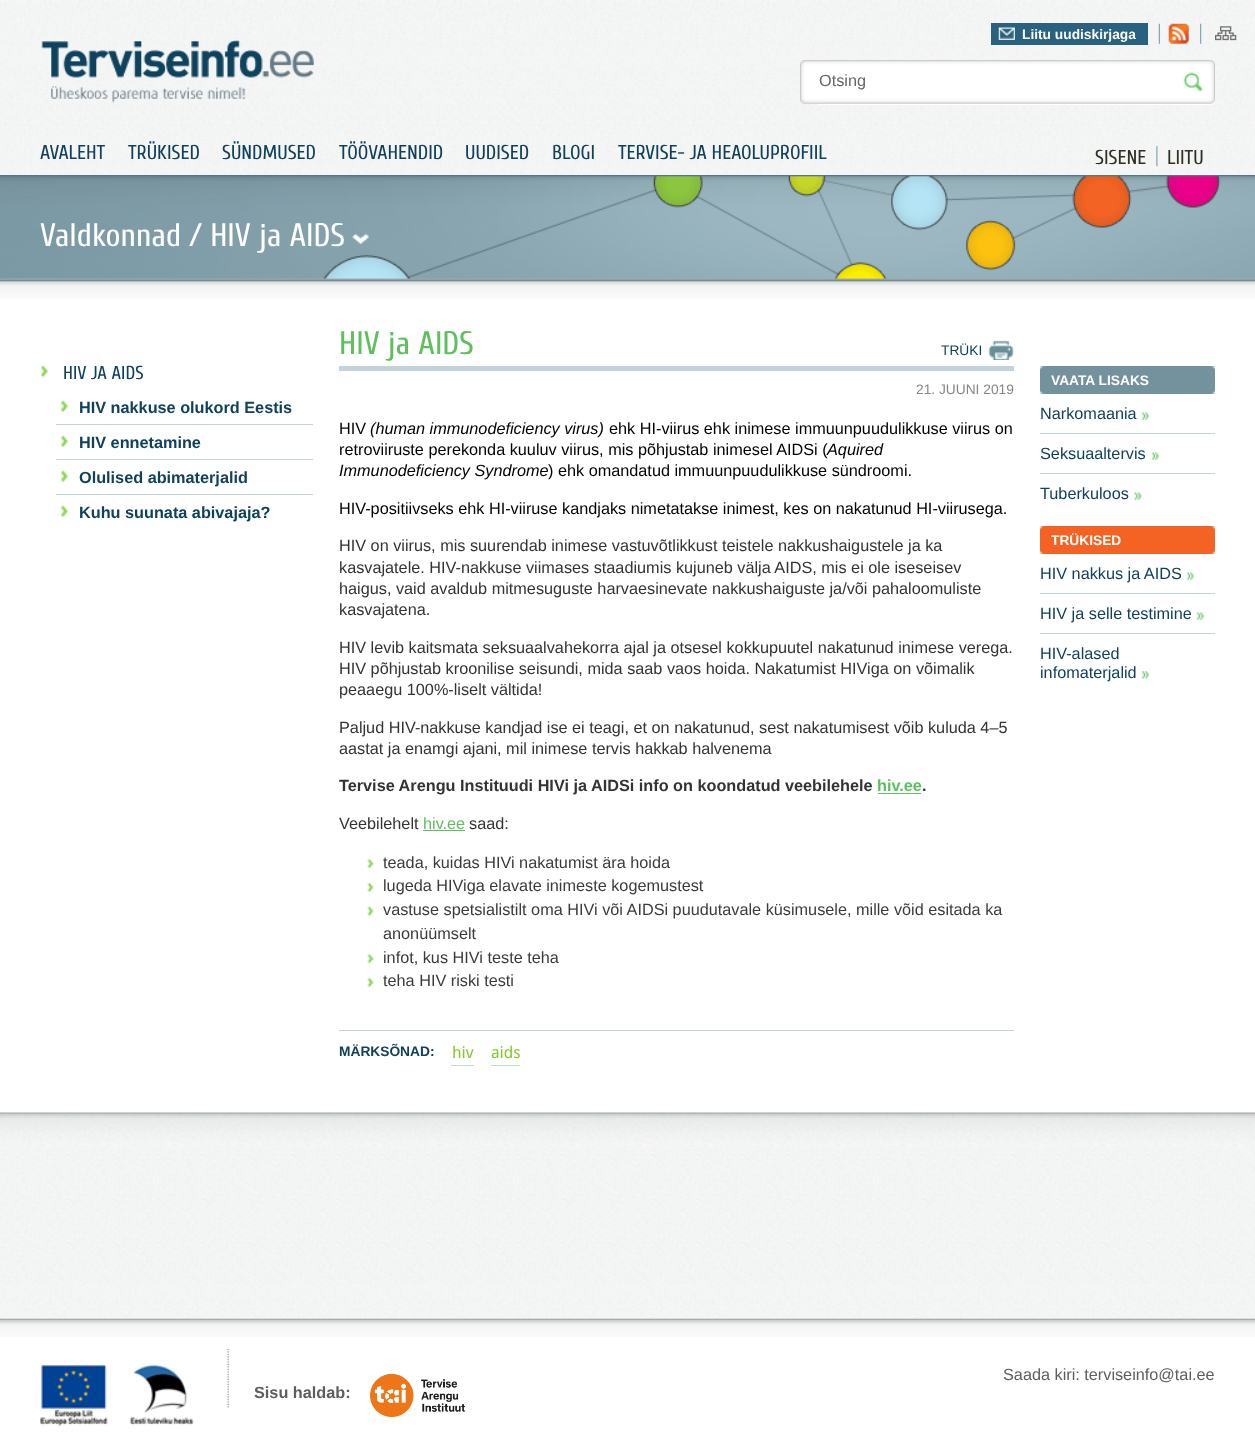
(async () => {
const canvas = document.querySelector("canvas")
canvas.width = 1255
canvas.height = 1436
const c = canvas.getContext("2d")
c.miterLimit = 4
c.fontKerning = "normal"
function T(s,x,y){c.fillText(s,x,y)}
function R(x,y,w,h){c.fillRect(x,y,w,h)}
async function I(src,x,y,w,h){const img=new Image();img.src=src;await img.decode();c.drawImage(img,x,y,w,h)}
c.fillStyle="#fff"
R(0,0,1255,1436)
await I("1.png",0,0,1255,175)
await I("2.png",41,40,273,63)
await I("3.png",1158,23,2,21)
c.fillStyle="#29617e"
R(991,23,157,22)
await I("4.png",998,27,17,13)
c.font="bold 13.75px Liberation Sans"
c.fillStyle="#fff"
T("Liitu uudiskirjaga",1022,39)
await I("5.png",1200,23,2,21)
await I("6.png",1168,23,21,21)
await I("7.png",1215,26,22,15)
await I("8.png",800,60,370,45)
c.font="16.25px Liberation Sans"
c.fillStyle="#666"
T("Otsing",819,86)
await I("9.png",1170,60,45,45)
c.font="20px Cuprum"
c.fillStyle="#0f415c"
T("AVALEHT",40,159)
T("TRÜKISED",128,159)
T("SÜNDMUSED",222,159)
T("TÖÖVAHENDID",339,159)
T("UUDISED",465,159)
T("BLOGI",552,159)
T("TERVISE- JA HEAOLUPROFIIL",618,159)
await I("10.png",1156,146,2,21)
c.fillStyle="#302f25"
T("SISENE",1095,164)
T("LIITU",1167,164)
await I("11.png",0,175,1255,104)
await I("12.png",0,176,1255,103)
c.font="32.5px Cuprum"
c.fillStyle="#fff"
T("Valdkonnad / HIV ja AIDS",40,246)
await I("13.png",352,233,17,11)
await I("14.png",0,278,1255,21)
await I("15.png",40,365,9,13)
c.font="18.75px Cuprum"
c.fillStyle="#0f415c"
T("HIV JA AIDS",63,379)
c.fillStyle="#c2d3da"
R(56,424,257,1)
await I("15.png",60,400,9,13)
c.font="bold 16.25px Liberation Sans"
c.fillStyle="#0f415c"
T("HIV nakkuse olukord Eestis",79,413)
c.fillStyle="#c2d3da"
R(56,459,257,1)
await I("15.png",60,435,9,13)
c.fillStyle="#0f415c"
T("HIV ennetamine",79,448)
c.fillStyle="#c2d3da"
R(56,494,257,1)
await I("15.png",60,470,9,13)
c.fillStyle="#0f415c"
T("Olulised abimaterjalid",79,483)
await I("15.png",60,505,9,13)
T("Kuhu suunata abivajaja?",79,518)
c.fillStyle="#c2d3da"
R(339,366,675,5)
c.font="32.5px Cuprum"
c.fillStyle="#5dbf5d"
T("HIV ja AIDS",339,354)
await I("16.png",988,340,26,20)
c.font="13.75px Liberation Sans"
c.fillStyle="#0f415c"
T("TRÜKI",941,355)
c.fillStyle="#868686"
T("21. JUUNI 2019",916,394)
c.font="16.25px Liberation Sans"
c.fillStyle="#000"
T("HIV",339,434)
c.font="italic 16.25px Liberation Sans"
T("(human immunodeficiency virus)",370,434)
c.font="16.25px Liberation Sans"
T("ehk HI-viirus ehk inimese immuunpuudulikkuse viirus on",609,434)
T("retroviiruste perekonda kuuluv viirus, mis põhjustab inimesel AIDSi (",339,455)
c.font="italic 16.25px Liberation Sans"
T("Aquired",827,455)
T("Immunodeficiency Syndrome",339,476)
c.font="16.25px Liberation Sans"
T(") ehk omandatud immuunpuudulikkuse sündroomi.",548,476)
T("HIV-positiivseks ehk HI-viiruse kandjaks nimetatakse inimest, kes on nakatunud HI-viirusega.",339,514)
c.fillStyle="#333"
T("HIV on viirus, mis suurendab inimese vastuvõtlikkust teistele nakkushaigustele ja ka",339,551)
T("kasvajatele. HIV-nakkuse viimases staadiumis kujuneb välja AIDS, mis ei ole iseseisev",339,573)
T("haigus, vaid avaldub mitmesuguste harvaesinevate nakkushaiguste ja/või pahaloomuliste",339,594)
T("kasvajatena.",339,615)
T("HIV levib kaitsmata seksuaalvahekorra ajal ja otsesel kokkupuutel nakatunud inimese verega.",339,653)
T("HIV põhjustab kroonilise seisundi, mida saab vaos hoida. Nakatumist HIViga on võimalik",339,674)
T("peaaegu 100%-liselt vältida!",339,695)
T("Paljud HIV-nakkuse kandjad ise ei teagi, et on nakatunud, sest nakatumisest võib kuluda 4–5",339,733)
T("aastat ja enamgi ajani, mil inimese tervis hakkab halvenema",339,754)
c.font="bold 16.25px Liberation Sans"
T("Tervise Arengu Instituudi HIVi ja AIDSi info on koondatud veebilehele",339,791)
c.fillStyle="#5dbf5d"
T("hiv.ee",877,791)
c.fillStyle="#333"
T(".",922,791)
c.fillStyle="#5dbf5d"
R(878,793,43,1)
c.font="16.25px Liberation Sans"
c.fillStyle="#333"
T("Veebilehelt",339,829)
c.fillStyle="#5dbf5d"
T("hiv.ee",423,829)
R(423,830,42,1)
c.fillStyle="#333"
T("saad:",469,829)
await I("17.png",367,858,7,11)
c.fillStyle="#3b3b3b"
T("teada, kuidas HIVi nakatumist ära hoida",383,868)
await I("18.png",367,882,7,11)
T("lugeda HIViga elavate inimeste kogemustest",383,891)
await I("19.png",367,906,7,11)
T("vastuse spetsialistilt oma HIVi või AIDSi puudutavale küsimusele, mille võid esitada ka",383,915)
T("anonüümselt",383,939)
await I("17.png",367,953,7,11)
T("infot, kus HIVi teste teha",383,963)
await I("18.png",367,977,7,11)
T("teha HIV riski testi",383,986)
c.fillStyle="#c2d3da"
R(339,1030,675,1)
c.font="bold 13.75px Liberation Sans"
c.fillStyle="#0f415c"
T("MÄRKSÕNAD:",339,1056)
c.fillStyle="#bfd8e1"
R(451,1065,23,1)
c.font="16.25px Droid Sans"
c.fillStyle="#84c92a"
T("hiv",452,1058)
c.fillStyle="#bfd8e1"
R(491,1065,29,1)
c.fillStyle="#84c92a"
T("aids",491,1058)
c.fillStyle="#74929d"
R(1040,366,175,28)
await I("20.png",1040,366,175,4)
await I("21.png",1040,390,175,4)
c.font="bold 13.75px Liberation Sans"
c.fillStyle="#fff"
T("VAATA LISAKS",1051,385)
c.fillStyle="#c2d3da"
R(1040,433,175,1)
c.font="16.25px Liberation Sans"
c.fillStyle="#0f415c"
T("Narkomaania",1040,419)
await I("22.png",1141,412,8,8)
c.fillStyle="#c2d3da"
R(1040,473,175,1)
c.fillStyle="#0f415c"
T("Seksuaaltervis",1040,459)
await I("22.png",1151,452,8,8)
T("Tuberkuloos",1040,499)
await I("23.png",1133,492,9,8)
c.fillStyle="#f46324"
R(1040,526,175,28)
await I("24.png",1040,526,175,4)
await I("25.png",1040,550,175,4)
c.font="bold 13.75px Liberation Sans"
c.fillStyle="#fff"
T("TRÜKISED",1051,545)
c.fillStyle="#c2d3da"
R(1040,593,175,1)
c.font="16.25px Liberation Sans"
c.fillStyle="#0f415c"
T("HIV nakkus ja AIDS",1040,579)
await I("22.png",1186,572,8,8)
c.fillStyle="#c2d3da"
R(1040,633,175,1)
c.fillStyle="#0f415c"
T("HIV ja selle testimine",1040,619)
await I("22.png",1196,612,8,8)
T("HIV-alased",1040,659)
T("infomaterjalid",1040,678)
await I("26.png",1141,671,8,8)
await I("27.png",0,1112,1255,171)
await I("28.png",0,1112,1255,38)
await I("29.png",0,1283,1255,37)
await I("30.png",36,1149,1184,127)
await I("31.png",0,1320,1255,17)
await I("32.png",227,1348,2,60)
await I("33.png",40,1365,154,62)
c.fillStyle="#5c5d5d"
T("Saada kiri: terviseinfo@tai.ee",1003,1380)
c.font="bold 16.25px Liberation Sans"
T("Sisu haldab:",254,1398)
await I("34.png",370,1373,95,44)
})()
